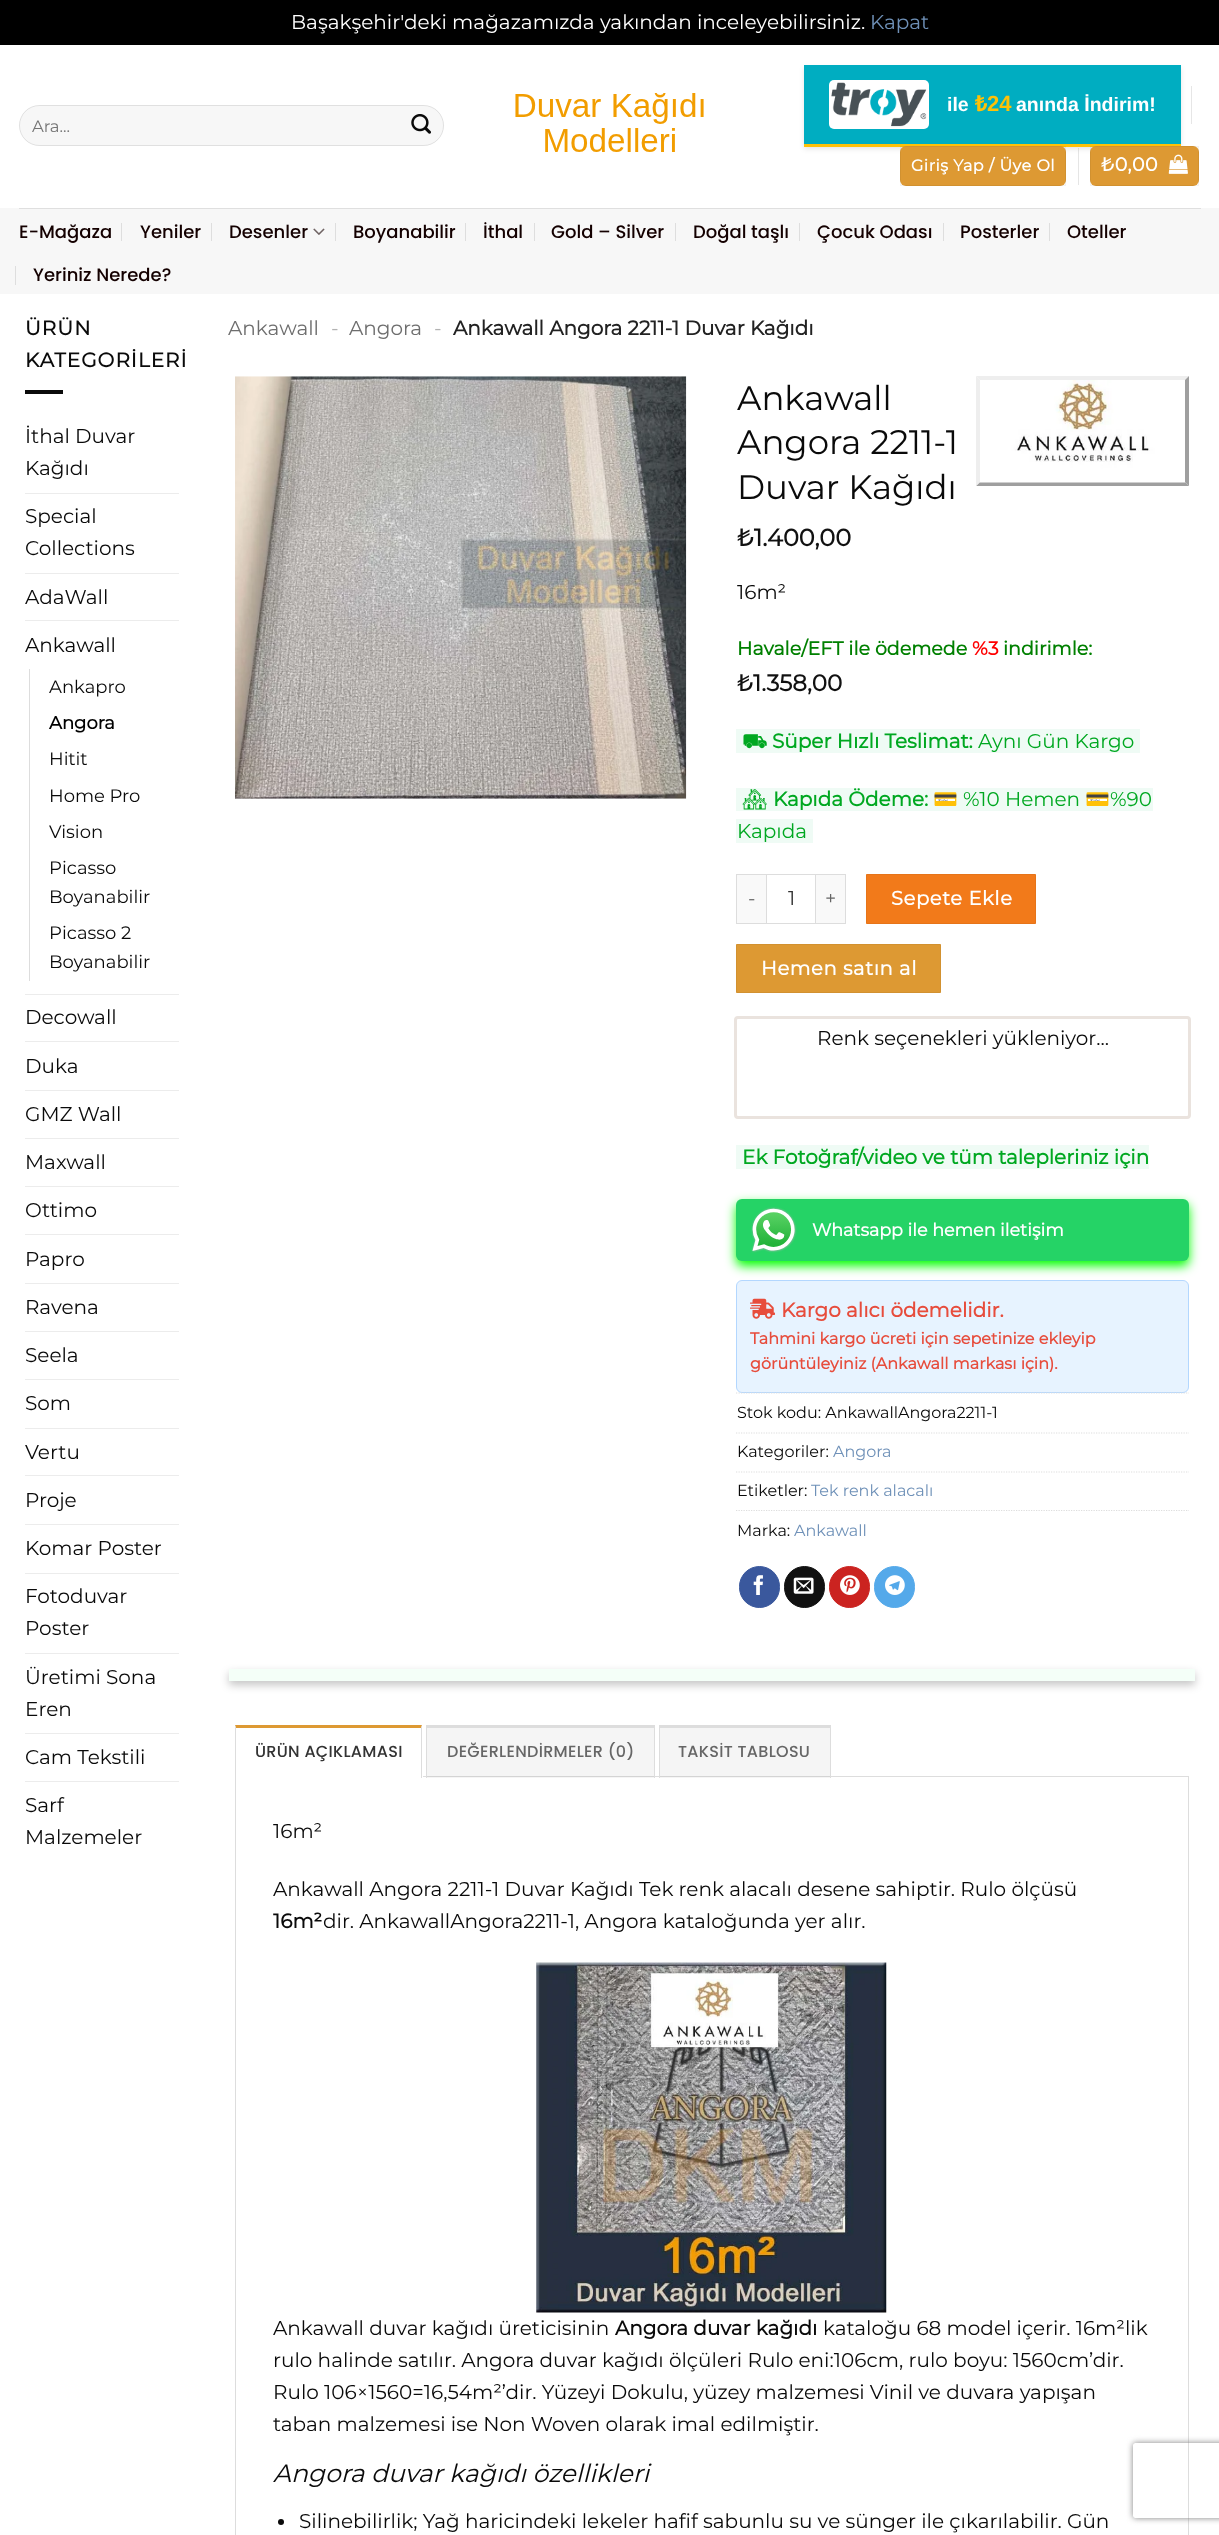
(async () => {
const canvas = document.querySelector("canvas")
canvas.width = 1219
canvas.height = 2535
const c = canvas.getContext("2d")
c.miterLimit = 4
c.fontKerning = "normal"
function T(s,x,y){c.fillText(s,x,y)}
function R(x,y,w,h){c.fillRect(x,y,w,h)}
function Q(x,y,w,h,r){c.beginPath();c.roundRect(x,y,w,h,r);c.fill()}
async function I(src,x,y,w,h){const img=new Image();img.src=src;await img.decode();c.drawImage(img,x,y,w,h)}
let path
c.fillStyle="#fff"
R(0,0,1219,2535)
c.fillStyle="#000"
R(0,0,1219,45)
c.font="100 20px Montserrat"
c.fillStyle="#fff"
T("Başakşehir'deki mağazamızda yakından inceleyebilirsiniz.",291,29)
c.fillStyle="#6f91b8"
T("Kapat",870,29)
c.fillStyle="#f7f7f7"
Q(19,105,425,41,20.5)
c.beginPath()
c.roundRect(19.5,105.5,424,40,20)
c.strokeStyle="#00000017"
c.stroke()
c.font="100 16.5px Montserrat"
c.fillStyle="#757575"
T("Ara...",32,132)
await I("1.png",411,114,20,20)
await I("2.png",515,93,189,59)
c.fillStyle="#0000001a"
c.filter="blur(2.5px)"
c.beginPath()
c.rect(804,68,377,81)
c.fill()
c.filter="none"
c.fillStyle="#00adc1"
R(804,65,377,79)
c.fillStyle="#ffc107"
R(804,144,377,3)
c.fillStyle="#fff"
Q(829,80,100,49,5)
await I("3.png",831,82,96,45)
c.font="bold 19.5px Liberation Sans"
T("ile",947,111)
c.font="bold 22px Noto Sans"
c.fillStyle="#ffc107"
T("₺",975,111)
c.font="bold 22px Liberation Sans"
T("24",987,111)
c.font="bold 19.5px Liberation Sans"
c.fillStyle="#fff"
T("anında İndirim!",1016,111)
c.fillStyle="#e6e6e6"
R(1191,86,1,38)
c.fillStyle="#d93"
Q(900,146,166,40,6)
c.strokeStyle="#0000000d"
c.strokeRect(900.5,146.5,165,39)
c.letterSpacing="0.5px"
c.font="bold 16px Montserrat"
c.fillStyle="#fff"
T("Giriş Yap / Üye Ol",911,171)
c.fillStyle="#0000001a"
R(1078,148,1,37)
c.fillStyle="#d93"
Q(1090,146,109,40,6)
c.strokeRect(1090.5,146.5,108,39)
c.font="bold 19px Montserrat"
c.fillStyle="#fff"
T("₺0,00",1101,171)
await I("4.png",1168,154,20,20)
c.fillStyle="#f7f7f7"
R(0,208,1219,86)
c.fillStyle="#dfdfdf"
R(19,208,1182,1)
c.letterSpacing="0px"
c.font="500 18px Poppins"
c.fillStyle="#140000"
T("E-Mağaza",19,238)
c.fillStyle="#dedede"
R(121,223,1,18)
c.fillStyle="#140000"
T("Yeniler",140,238)
c.fillStyle="#dedede"
R(211,223,1,18)
c.fillStyle="#140000"
T("Desenler",229,238)
await I("5.png",313,228,12,7)
c.fillStyle="#dedede"
R(335,223,1,18)
c.fillStyle="#140000"
T("Boyanabilir",353,238)
c.fillStyle="#dedede"
R(465,223,1,18)
c.fillStyle="#140000"
T("İthal",483,238)
c.fillStyle="#dedede"
R(534,223,1,18)
c.fillStyle="#140000"
T("Gold – Silver",551,238)
c.fillStyle="#dedede"
R(675,223,1,18)
c.fillStyle="#140000"
T("Doğal taşlı",693,238)
c.fillStyle="#dedede"
R(799,223,1,18)
c.fillStyle="#140000"
T("Çocuk Odası",817,238)
c.fillStyle="#dedede"
R(943,223,1,18)
c.fillStyle="#140000"
T("Posterler",960,238)
c.fillStyle="#dedede"
R(1049,223,1,18)
c.fillStyle="#140000"
T("Oteller",1067,238)
c.fillStyle="#dedede"
R(15,266,1,19)
c.fillStyle="#140000"
T("Yeriniz Nerede?",33,281)
c.letterSpacing="1px"
c.font="bold 20px Montserrat"
c.fillStyle="#0a0a0a"
T("ÜRÜN",25,335)
T("KATEGORİLERİ",25,367)
R(25,390,38,4)
c.letterSpacing="0px"
c.font="100 20px Montserrat"
T("İthal Duvar",25,443)
T("Kağıdı",25,475)
c.fillStyle="#ececec"
R(25,493,154,1)
c.fillStyle="#0a0a0a"
T("Special",25,523)
T("Collections",25,555)
c.fillStyle="#ececec"
R(25,573,154,1)
c.fillStyle="#0a0a0a"
T("AdaWall",25,604)
c.fillStyle="#ececec"
R(25,620,154,1)
c.fillStyle="#0a0a0a"
T("Ankawall",25,652)
c.fillStyle="#ddd"
R(29,669,1,312)
c.font="100 18px Montserrat"
c.fillStyle="#0a0a0a"
T("Ankapro",49,693)
c.font="bold 18px Montserrat"
c.fillStyle="#000"
T("Angora",49,729)
c.font="100 18px Montserrat"
c.fillStyle="#0a0a0a"
T("Hitit",49,765)
T("Home Pro",49,802)
T("Vision",49,838)
T("Picasso",49,874)
T("Boyanabilir",49,903)
T("Picasso 2",49,939)
T("Boyanabilir",49,968)
c.fillStyle="#ececec"
R(25,994,154,1)
c.font="100 20px Montserrat"
c.fillStyle="#0a0a0a"
T("Decowall",25,1024)
c.fillStyle="#ececec"
R(25,1041,154,1)
c.fillStyle="#0a0a0a"
T("Duka",25,1073)
c.fillStyle="#ececec"
R(25,1090,154,1)
c.fillStyle="#0a0a0a"
T("GMZ Wall",25,1121)
c.fillStyle="#ececec"
R(25,1138,154,1)
c.fillStyle="#0a0a0a"
T("Maxwall",25,1169)
c.fillStyle="#ececec"
R(25,1186,154,1)
c.fillStyle="#0a0a0a"
T("Ottimo",25,1217)
c.fillStyle="#ececec"
R(25,1234,154,1)
c.fillStyle="#0a0a0a"
T("Papro",25,1266)
c.fillStyle="#ececec"
R(25,1283,154,1)
c.fillStyle="#0a0a0a"
T("Ravena",25,1314)
c.fillStyle="#ececec"
R(25,1331,154,1)
c.fillStyle="#0a0a0a"
T("Seela",25,1362)
c.fillStyle="#ececec"
R(25,1379,154,1)
c.fillStyle="#0a0a0a"
T("Som",25,1410)
c.fillStyle="#ececec"
R(25,1428,154,1)
c.fillStyle="#0a0a0a"
T("Vertu",25,1459)
c.fillStyle="#ececec"
R(25,1475,154,1)
c.fillStyle="#0a0a0a"
T("Proje",25,1507)
c.fillStyle="#ececec"
R(25,1524,154,1)
c.fillStyle="#0a0a0a"
T("Komar Poster",25,1555)
c.fillStyle="#ececec"
R(25,1573,154,1)
c.fillStyle="#0a0a0a"
T("Fotoduvar",25,1603)
T("Poster",25,1635)
c.fillStyle="#ececec"
R(25,1653,154,1)
c.fillStyle="#0a0a0a"
T("Üretimi Sona",25,1684)
T("Eren",25,1716)
c.fillStyle="#ececec"
R(25,1733,154,1)
c.fillStyle="#0a0a0a"
T("Cam Tekstili",25,1764)
c.fillStyle="#ececec"
R(25,1781,154,1)
c.fillStyle="#0a0a0a"
T("Sarf",25,1812)
T("Malzemeler",25,1844)
c.fillStyle="#6e6e6e"
T("Ankawall",228,335)
c.fillStyle="#b2b2b2"
T("-",331,335)
c.fillStyle="#6e6e6e"
T("Angora",349,335)
c.fillStyle="#b2b2b2"
T("-",434,335)
c.font="bold 20px Montserrat"
c.fillStyle="#222"
T("Ankawall Angora 2211-1 Duvar Kağıdı",453,335)
await I("6.png",235,376,452,423)
c.font="100 34px Montserrat"
c.fillStyle="#0a0a0a"
T("Ankawall",737,410)
T("Angora 2211-1",737,454)
T("Duvar Kağıdı",737,499)
c.fillStyle="#eee"
path = new Path2D("M976 376h213l-4 4h-205z")
c.fill(path)
c.fillStyle="#9f9f9f"
path = new Path2D("M1189 376v110l-4-4v-102z")
c.fill(path)
path = new Path2D("M1189 486h-213l4-4h205z")
c.fill(path)
c.fillStyle="#eee"
path = new Path2D("M976 486v-110l4 4v102z")
c.fill(path)
await I("7.png",980,380,205,103)
c.font="bold 24px Montserrat"
c.fillStyle="#111"
T("₺1.400,00",737,546)
c.font="100 20px Montserrat"
c.fillStyle="#0a0a0a"
T("16m²",737,599)
c.font="bold 19px Montserrat"
c.fillStyle="#008000"
T("Havale/EFT ile ödemede",737,655)
c.fillStyle="#f00"
T("%3",972,655)
c.fillStyle="#008000"
T("indirimle:",1003,655)
c.font="bold 23px Montserrat"
c.fillStyle="#111"
T("₺1.358,00",737,691)
c.fillStyle="#effbf5"
R(736,729,404,24)
c.font="bold 20px STIX Two Math"
c.fillStyle="#00a821"
T("⛟",742,748)
c.font="bold 20px Montserrat"
T("Süper Hızlı Teslimat:",772,748)
c.font="100 20px Montserrat"
T("Aynı Gün Kargo",978,748)
c.fillStyle="#effbf5"
R(736,788,417,23)
c.font="bold 20px Noto Emoji"
c.fillStyle="#00a821"
T("🏘",742,806)
c.font="bold 20px Montserrat"
T("Kapıda Ödeme:",773,806)
c.font="20px Noto Color Emoji"
T("💳",933,806)
c.font="100 20px Montserrat"
T("%10 Hemen",963,806)
c.font="20px Noto Color Emoji"
T("💳",1085,806)
c.font="100 20px Montserrat"
T("%90",1110,806)
c.fillStyle="#effbf5"
R(736,819,77,24)
c.fillStyle="#00a821"
T("Kapıda",737,838)
c.fillStyle="#f9f9f9"
R(737,875,29,48)
c.fillStyle="#ddd"
R(736,874,30,1)
R(736,923,30,1)
R(736,874,1,50)
c.letterSpacing="0.6px"
c.font="100 19.5px Montserrat"
c.fillStyle="#666"
T("-",748,905)
c.strokeStyle="#ddd"
c.strokeRect(766.5,874.5,49,49)
c.letterSpacing="0px"
c.font="100 20px Montserrat"
c.fillStyle="#333"
T("1",788,905)
c.fillStyle="#f9f9f9"
R(816,875,29,48)
c.fillStyle="#ddd"
R(816,874,30,1)
R(845,874,1,50)
R(816,923,30,1)
c.letterSpacing="0.6px"
c.font="100 19.5px Montserrat"
c.fillStyle="#666"
T("+",825,905)
c.fillStyle="#f27a1a"
c.beginPath()
c.rect(866.5,874.5,169,49)
c.fill()
c.strokeStyle="#e67419"
c.stroke()
c.font="bold 19.5px Montserrat"
c.fillStyle="#fff"
T("Sepete Ekle",891,905)
c.fillStyle="#d93"
c.beginPath()
c.rect(736.5,944.5,204,48)
c.fill()
c.strokeStyle="#d29130"
c.stroke()
c.fillStyle="#fff"
T("Hemen satın al",761,975)
c.beginPath()
c.roundRect(735.5,1017.5,454,100,2.5)
c.strokeStyle="#eae3de"
c.lineWidth=3
c.stroke()
c.letterSpacing="0px"
c.font="100 20px Montserrat"
c.fillStyle="#0a0a0a"
T("Renk seçenekleri yükleniyor...",817,1045)
c.fillStyle="#effbf5"
R(736,1145,413,24)
c.font="bold 20px Montserrat"
c.fillStyle="#00a821"
T("Ek Fotoğraf/video ve tüm talepleriniz için",742,1164)
c.fillStyle="#0f0"
c.filter="blur(5.5px)"
c.beginPath()
c.roundRect(736,1204,453,62,6)
c.fill()
c.filter="none"
c.fillStyle="#25d366"
Q(736,1199,453,62,6)
await I("8.png",751,1207,46,46)
c.font="bold 17.5px Montserrat"
c.fillStyle="#fff"
T("Whatsapp ile hemen iletişim",812,1236)
c.fillStyle="#e7f3ff"
c.beginPath()
c.roundRect(736.5,1280.5,452,112,5.5)
c.fill()
c.strokeStyle="#b3d7ff"
c.lineWidth=1
c.stroke()
await I("9.png",750,1298,25,21)
c.font="bold 20px Montserrat"
c.fillStyle="#e74c3c"
T("Kargo alıcı ödemelidir.",781,1317)
c.font="bold 16px Montserrat"
T("Tahmini kargo ücreti için sepetinize ekleyip",750,1344)
T("görüntüleyiniz (Ankawall markası için).",750,1369)
path = new Path2D("M736 1393h453")
c.strokeStyle="#ddd"
c.lineWidth=1.2
c.setLineDash([1.25,1.25])
c.stroke(path)
c.font="100 16px Montserrat"
c.fillStyle="#0a0a0a"
T("Stok kodu: AnkawallAngora2211-1",737,1418)
path = new Path2D("M736 1433h453")
c.stroke(path)
T("Kategoriler:",737,1457)
c.fillStyle="#6f91b8"
T("Angora",833,1457)
path = new Path2D("M736 1472h453")
c.stroke(path)
c.fillStyle="#0a0a0a"
T("Etiketler:",737,1496)
c.fillStyle="#6f91b8"
T("Tek renk alacalı",811,1496)
path = new Path2D("M736 1510.5h453")
c.stroke(path)
c.fillStyle="#0a0a0a"
T("Marka:",737,1536)
c.fillStyle="#6f91b8"
T("Ankawall",794,1536)
c.fillStyle="#3a589d"
c.beginPath()
c.roundRect(739.5,1566.5,40,41,20)
c.fill()
c.strokeStyle="#3a589d"
c.lineWidth=1
c.setLineDash([])
c.stroke()
await I("10.png",753,1575,10,20)
c.fillStyle="#111"
c.beginPath()
c.roundRect(784.5,1566.5,40,41,20)
c.fill()
c.strokeStyle="#111"
c.stroke()
await I("11.png",793,1577,21,17)
c.fillStyle="#cb2320"
c.beginPath()
c.roundRect(829.5,1566.5,40,41,20)
c.fill()
c.strokeStyle="#cb2320"
c.stroke()
await I("12.png",840,1575,20,20)
c.fillStyle="#54a9ea"
c.beginPath()
c.roundRect(874.5,1566.5,40,41,20)
c.fill()
c.strokeStyle="#54a9ea"
c.stroke()
await I("13.png",885,1575,20,20)
c.fillStyle="#0000003b"
c.filter="blur(4px)"
c.beginPath()
c.rect(229,1673,966,12)
c.fill()
c.filter="none"
c.fillStyle="#f4fff8"
R(229,1669,966,12)
c.strokeStyle="#ddd"
c.strokeRect(235.5,1776.5,953,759)
c.fillStyle="#fff"
R(235,1776,188,2)
c.fillStyle="#d93"
path = new Path2D("M235 1725h187l-1 3h-185z")
c.fill(path)
c.fillStyle="#ddd"
path = new Path2D("M422 1725v53h-1v-50z")
c.fill(path)
path = new Path2D("M235 1778v-53l1 3v50z")
c.fill(path)
c.letterSpacing="0.3px"
c.font="500 16px Poppins"
c.fillStyle="#333"
T("ÜRÜN AÇIKLAMASI",255,1757)
c.fillStyle="#0000000a"
R(427,1728,227,50)
c.fillStyle="#ddd"
R(426,1725,229,3)
R(654,1725,1,53)
R(426,1725,1,53)
c.fillStyle="#666"
T("DEĞERLENDİRMELER (0)",447,1757)
c.fillStyle="#0000000a"
R(660,1728,170,50)
c.fillStyle="#ddd"
R(659,1725,172,3)
R(830,1725,1,53)
R(659,1725,1,53)
c.fillStyle="#666"
T("TAKSİT TABLOSU",678,1757)
c.letterSpacing="0px"
c.font="100 20px Montserrat"
c.fillStyle="#0a0a0a"
T("16m²",273,1838)
T("Ankawall Angora 2211-1 Duvar Kağıdı Tek renk alacalı desene sahiptir. Rulo ölçüsü",273,1896)
c.font="bold 20px Montserrat"
T("16m²",273,1928)
c.font="100 20px Montserrat"
T("dir. AnkawallAngora2211-1, Angora kataloğunda yer alır.",323,1928)
await I("14.png",536,1962,351,351)
T("Ankawall duvar kağıdı üreticisinin",273,2335)
c.font="bold 20px Montserrat"
T("Angora duvar kağıdı",615,2335)
c.font="100 20px Montserrat"
T("kataloğu 68 model içerir. 16m²lik",823,2335)
T("rulo halinde satılır. Angora duvar kağıdı ölçüleri Rulo eni:106cm, rulo boyu: 1560cm’dir.",273,2367)
T("Rulo 106×1560=16,54m²’dir. Yüzeyi Dokulu, yüzey malzemesi Vinil ve duvara yapışan",273,2399)
T("taban malzemesi ise Non Woven olarak imal edilmiştir.",273,2431)
c.font="italic 100 25px Montserrat"
T("Angora duvar kağıdı özellikleri",273,2482)
c.beginPath()
c.arc(281,2522,3,0,7)
c.fill()
c.font="100 20px Montserrat"
T("Silinebilirlik; Yağ haricindeki lekeler hafif sabunlu su ve sünger ile çıkarılabilir. Gün",299,2528)
c.save()
path = new Path2D("M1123 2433h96v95h-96zm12.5 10h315c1.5 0 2.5 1 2.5 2.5v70c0 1.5-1 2.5-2.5 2.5h-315c-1.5 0-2.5-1-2.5-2.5v-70c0-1.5 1-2.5 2.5-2.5z")
c.clip(path,"evenodd")
c.fillStyle="#808080"
c.filter="blur(3px)"
c.beginPath()
c.roundRect(1133,2443,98,75,2.5)
c.fill()
c.filter="none"
c.restore()
})()
